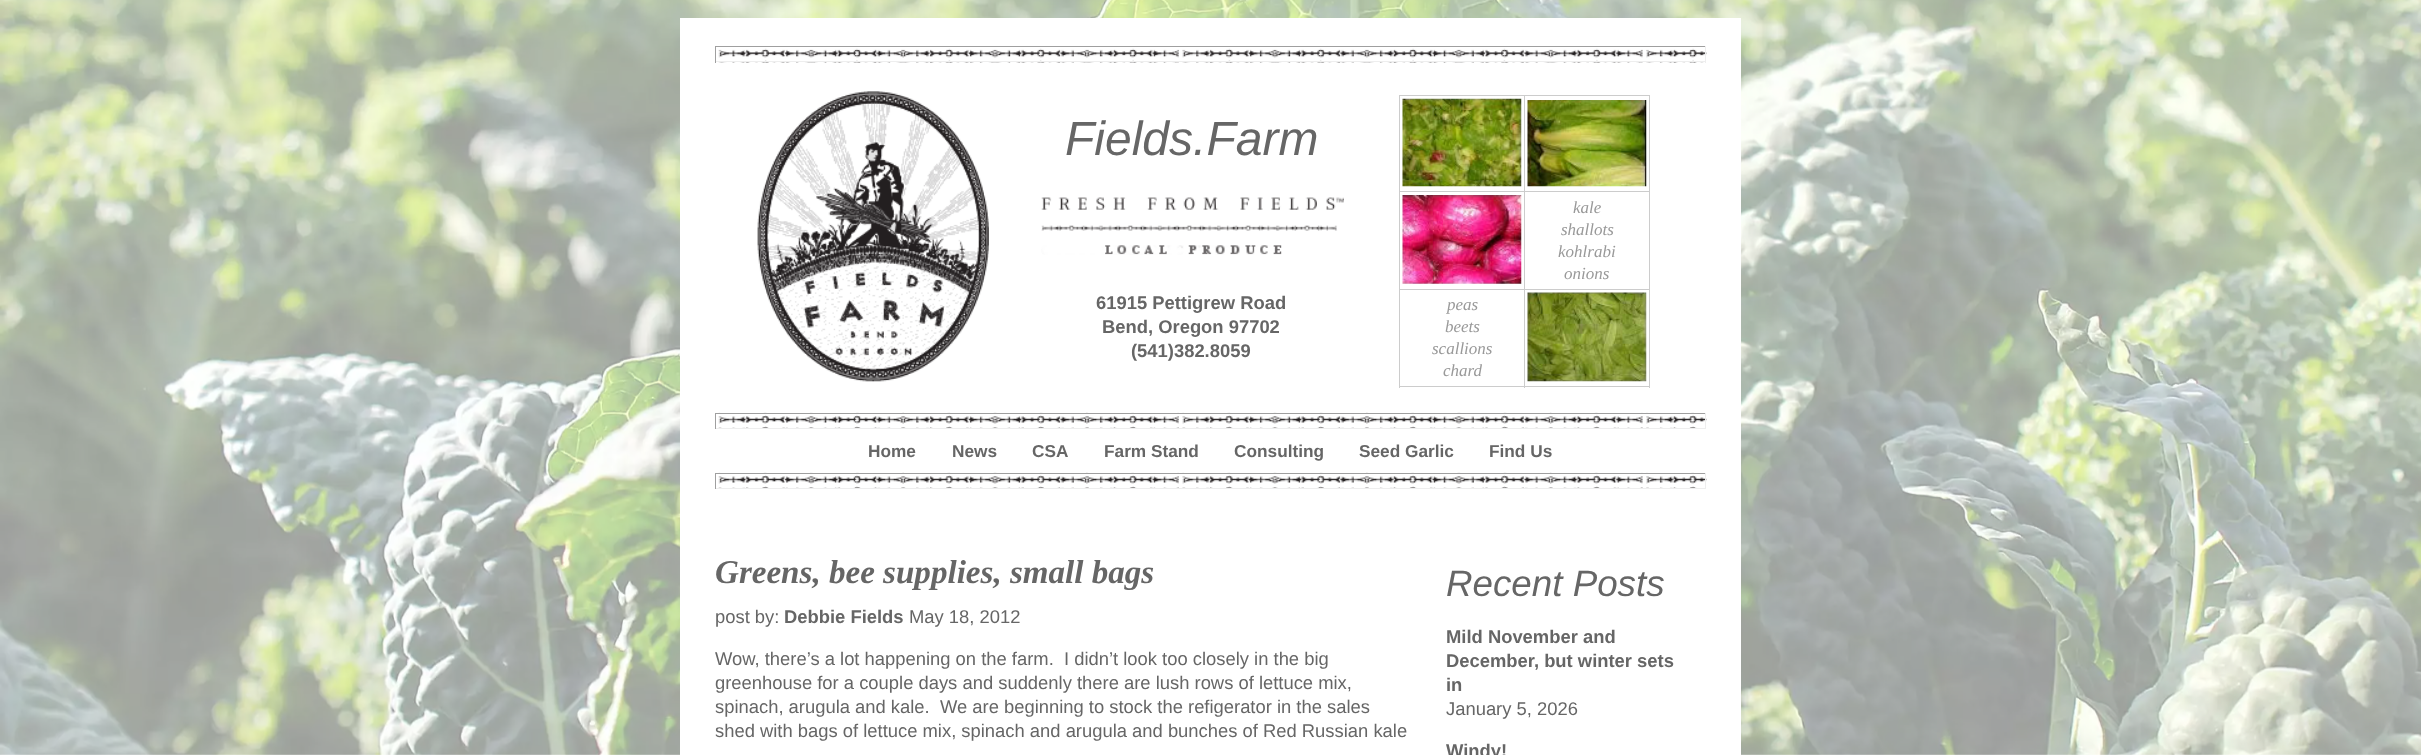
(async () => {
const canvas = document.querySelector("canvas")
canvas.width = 2421
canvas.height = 755
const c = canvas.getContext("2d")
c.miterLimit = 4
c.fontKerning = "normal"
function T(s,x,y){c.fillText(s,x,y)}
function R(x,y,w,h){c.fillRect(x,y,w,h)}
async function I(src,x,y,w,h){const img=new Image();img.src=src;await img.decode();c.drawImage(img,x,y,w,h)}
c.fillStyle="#fff"
R(0,0,2421,755)
await I("1.png",0,0,2421,755)
R(680,18,1061,737)
await I("2.png",716,46,991,17)
c.fillStyle="#9f9f9f"
R(715,46,991,1)
c.fillStyle="#eee"
R(1705,46,1,17)
R(715,61,991,1)
c.fillStyle="#9f9f9f"
R(715,46,1,17)
await I("3.png",757,91,232,291)
c.font="italic 48px Liberation Sans"
c.fillStyle="#666"
T("Fields.Farm",1065,155)
await I("4.png",1041,197,303,58)
c.font="bold 18.4px Liberation Sans"
T("61915 Pettigrew Road",1096,309)
T("Bend, Oregon 97702",1102,333)
T("(541)382.8059",1131,357)
c.fillStyle="#ccc"
R(1524,95,126,1)
R(1524,191,126,1)
R(1524,289,126,1)
R(1649,289,1,99)
R(1524,386,126,1)
R(1524,289,1,99)
R(1399,289,126,1)
R(1524,191,1,99)
R(1399,191,126,1)
R(1524,95,1,98)
R(1399,95,126,1)
R(1399,386,126,1)
R(1399,289,1,99)
R(1399,191,1,99)
R(1399,95,1,98)
await I("5.png",1402,98,120,89)
R(1649,191,1,99)
R(1649,95,1,98)
await I("6.png",1527,100,120,87)
await I("7.png",1402,195,120,89)
c.font="italic 17px Liberation Serif"
c.fillStyle="#999"
T("kale",1573,213)
T("shallots",1561,235)
T("kohlrabi",1558,257)
T("onions",1564,279)
T("peas",1447,310)
T("beets",1445,332)
T("scallions",1432,354)
T("chard",1443,376)
await I("8.png",1527,292,120,90)
await I("9.png",715,412,992,17)
c.fillStyle="#9f9f9f"
R(715,413,991,1)
c.fillStyle="#eee"
R(1705,413,1,16)
R(715,428,991,1)
c.fillStyle="#9f9f9f"
R(715,413,1,16)
c.font="bold 17.25px Liberation Sans"
c.fillStyle="#666"
T("Home",868,457)
T("News",952,457)
T("CSA",1032,457)
T("Farm Stand",1104,457)
T("Consulting",1234,457)
T("Seed Garlic",1359,457)
T("Find Us",1489,457)
await I("9.png",715,472,992,17)
c.fillStyle="#9f9f9f"
R(715,473,991,1)
c.fillStyle="#eee"
R(1705,473,1,16)
R(715,488,991,1)
c.fillStyle="#9f9f9f"
R(715,473,1,16)
c.font="italic bold 33.1px Liberation Serif"
c.fillStyle="#666"
T("Greens, bee supplies, small bags",715,583)
c.font="18.4px Liberation Sans"
T("post by:",715,623)
c.font="bold 18.4px Liberation Sans"
T("Debbie Fields",784,623)
c.font="18.4px Liberation Sans"
T("May 18, 2012",909,623)
T("Wow, there’s a lot happening on the farm.  I didn’t look too closely in the big",715,665)
T("greenhouse for a couple days and suddenly there are lush rows of lettuce mix,",715,689)
T("spinach, arugula and kale.  We are beginning to stock the refigerator in the sales",715,713)
T("shed with bags of lettuce mix, spinach and arugula and bunches of Red Russian kale",715,737)
c.font="italic 36.75px Liberation Sans"
T("Recent Posts",1446,596)
c.font="bold 18.4px Liberation Sans"
T("Mild November and",1446,643)
T("December, but winter sets",1446,667)
T("in",1446,691)
c.font="18.4px Liberation Sans"
T("January 5, 2026",1446,715)
c.font="bold 18.4px Liberation Sans"
T("Windy!",1446,757)
})()
